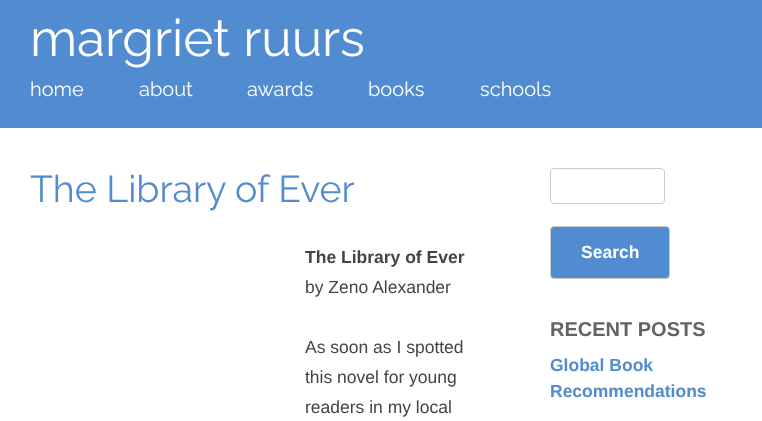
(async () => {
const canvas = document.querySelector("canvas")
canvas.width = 762
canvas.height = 421
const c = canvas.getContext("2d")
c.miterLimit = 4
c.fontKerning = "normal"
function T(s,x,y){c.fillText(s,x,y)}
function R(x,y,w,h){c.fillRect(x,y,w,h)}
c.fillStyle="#fff"
R(0,0,762,421)
c.fillStyle="#518cd1"
R(0,0,762,128)
c.font="100 51.25px Raleway"
c.fillStyle="#fff"
T("margriet ruurs",30,56)
c.font="100 20px Raleway"
T("home",30,96)
T("about",139,96)
T("awards",247,96)
T("books",368,96)
T("schools",480,96)
c.font="100 37.5px Raleway"
c.fillStyle="#528bd0"
T("The Library of Ever",30,202)
c.font="bold 17.5px Liberation Sans"
c.fillStyle="#444"
T("The Library of Ever",305,263)
c.font="17.5px Liberation Sans"
T("by Zeno Alexander",305,293)
T("As soon as I spotted",305,353)
T("this novel for young",305,383)
T("readers in my local",305,413)
c.beginPath()
c.roundRect(550.5,168.5,114,35,3.5)
c.strokeStyle="#ccc"
c.stroke()
c.fillStyle="#518cd1"
c.beginPath()
c.roundRect(550.5,226.5,119,52,3.5)
c.fill()
c.stroke()
c.font="bold 17.5px Liberation Sans"
c.fillStyle="#fff"
T("Search",581,258)
c.font="bold 20px Liberation Sans"
c.fillStyle="#636363"
T("RECENT POSTS",550,336)
c.font="bold 17.5px Liberation Sans"
c.fillStyle="#528bd0"
T("Global Book",550,371)
T("Recommendations",550,397)
})()
